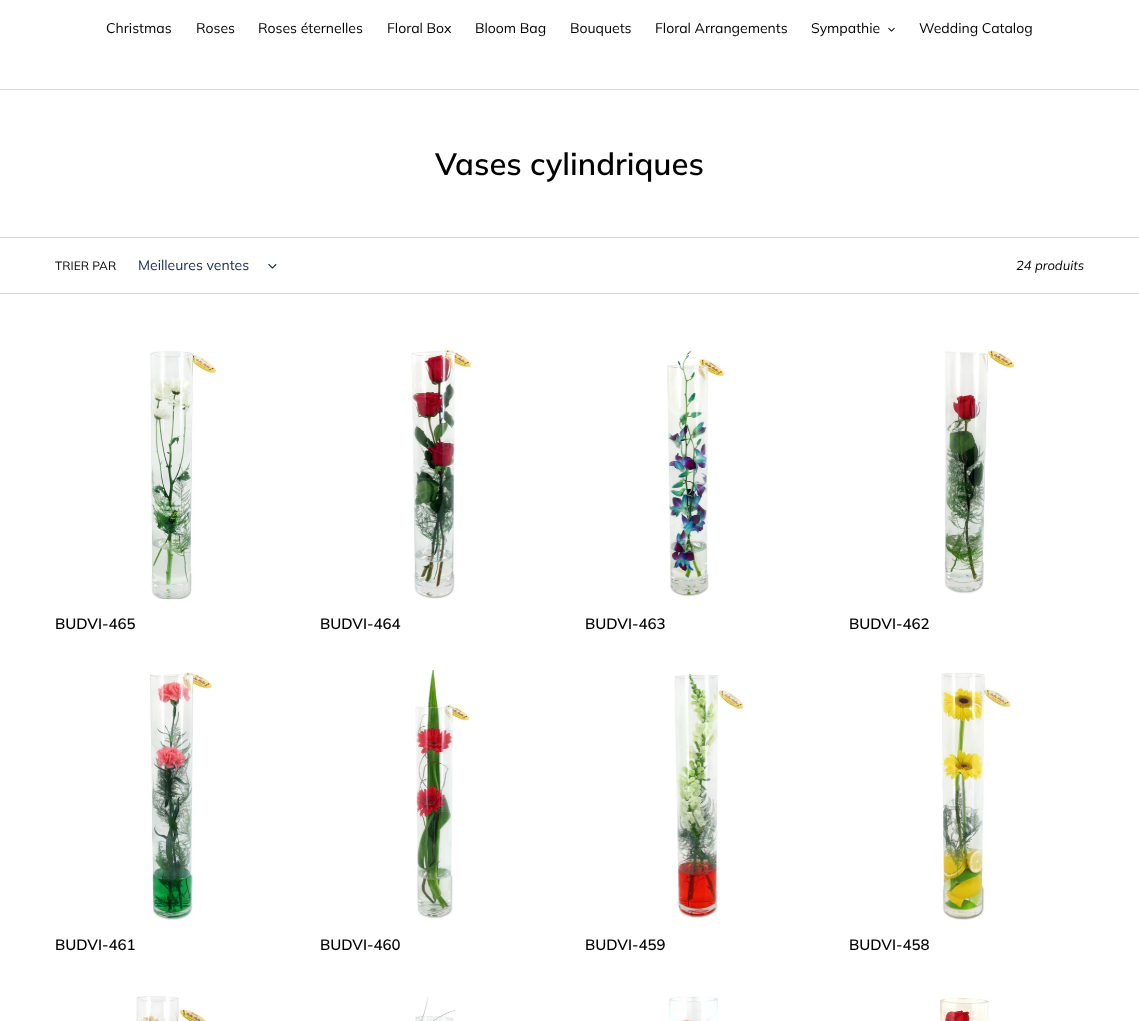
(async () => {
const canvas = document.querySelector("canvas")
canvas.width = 1139
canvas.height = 1021
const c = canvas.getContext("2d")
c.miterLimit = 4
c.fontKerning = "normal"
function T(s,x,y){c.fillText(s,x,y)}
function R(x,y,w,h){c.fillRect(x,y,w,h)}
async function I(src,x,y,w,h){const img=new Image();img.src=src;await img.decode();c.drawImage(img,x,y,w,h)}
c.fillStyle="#fff"
R(0,0,1139,1021)
c.fillStyle="#d8d8d8"
R(0,89,1139,1)
c.font="14px Muli"
c.fillStyle="#000"
T("Christmas",106,33)
T("Roses",196,33)
T("Roses éternelles",258,33)
T("Floral Box",387,33)
T("Bloom Bag",475,33)
T("Bouquets",570,33)
T("Floral Arrangements",655,33)
T("Sympathie",811,33)
await I("1.png",888,27,7,5)
T("Wedding Catalog",919,33)
c.font="600 31px Muli"
T("Vases cylindriques",435,175)
c.fillStyle="#d8d8d8"
R(0,237,1139,1)
R(0,293,1139,1)
c.font="12px Muli"
c.fillStyle="#000"
T("TRIER PAR",55,270)
c.font="14px Muli"
c.fillStyle="#162950"
T("Meilleures ventes",138,270)
await I("2.png",268,264,9,5)
c.font="italic 13px Muli"
c.fillStyle="#000"
T("24 produits",1016,270)
await I("3.png",150,351,67,249)
c.font="600 15px Muli"
T("BUDVI-465",55,629)
await I("4.png",411,349,62,250)
T("BUDVI-464",320,629)
await I("5.png",667,350,58,249)
T("BUDVI-463",585,629)
await I("6.png",944,349,71,245)
T("BUDVI-462",849,629)
await I("7.png",150,672,63,248)
T("BUDVI-461",55,950)
await I("8.png",414,670,56,250)
T("BUDVI-460",320,950)
await I("9.png",674,673,72,246)
T("BUDVI-459",585,950)
await I("10.png",941,672,71,248)
T("BUDVI-458",849,950)
await I("11.png",136,996,70,25)
await I("12.png",415,996,41,25)
await I("13.png",669,996,49,25)
await I("14.png",939,997,51,24)
})()
